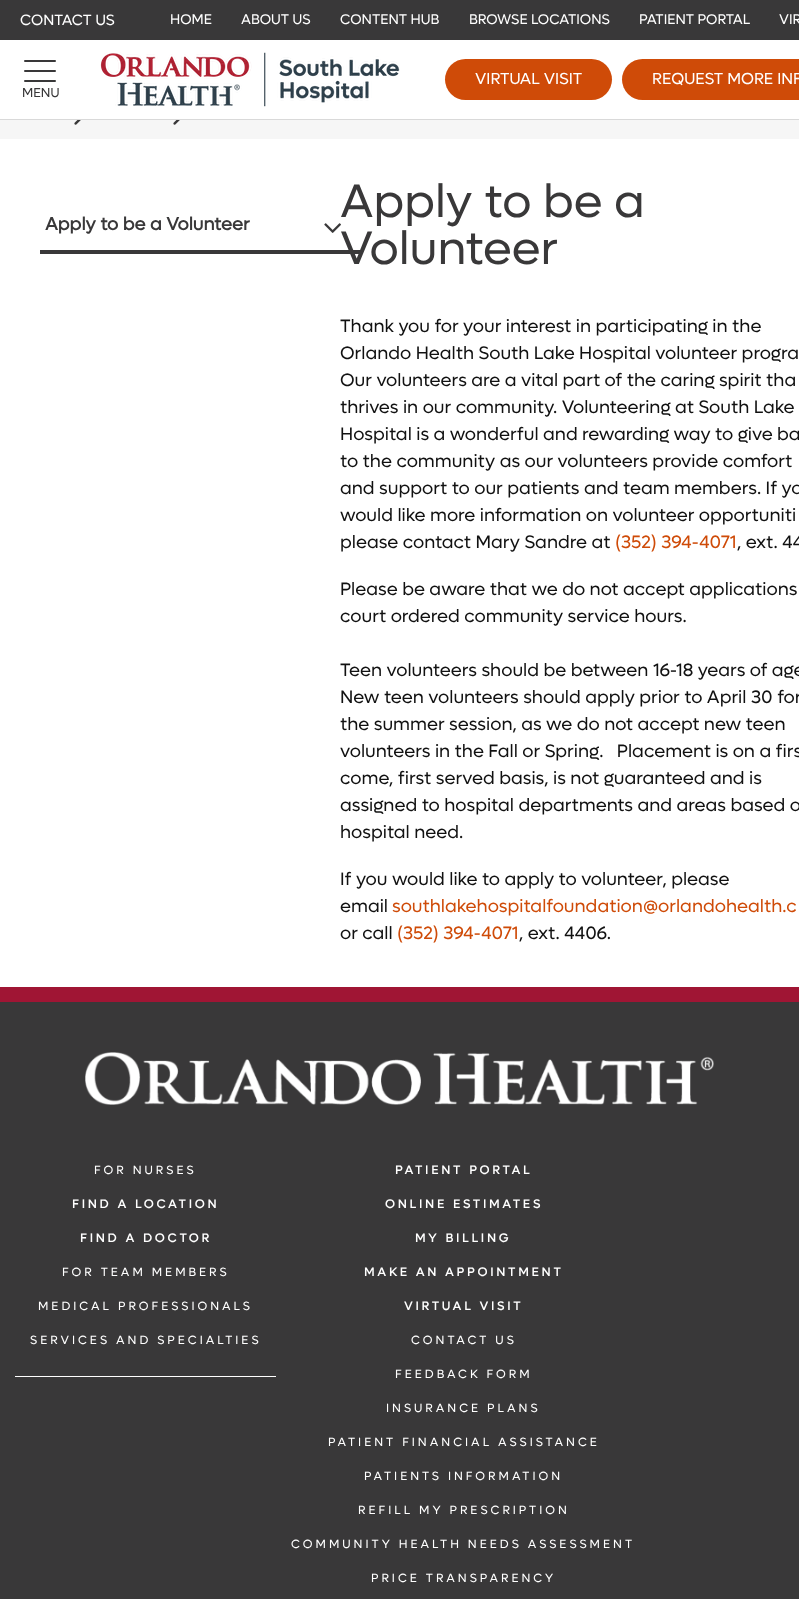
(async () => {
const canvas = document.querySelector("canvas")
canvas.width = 799
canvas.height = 1599
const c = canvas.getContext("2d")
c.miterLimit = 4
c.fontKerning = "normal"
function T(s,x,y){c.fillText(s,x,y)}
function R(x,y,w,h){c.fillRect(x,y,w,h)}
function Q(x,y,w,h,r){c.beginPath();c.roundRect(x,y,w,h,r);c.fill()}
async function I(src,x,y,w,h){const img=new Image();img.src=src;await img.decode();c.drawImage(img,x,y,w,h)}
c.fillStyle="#fff"
R(0,0,799,1599)
c.fillStyle="#393839"
R(0,0,799,40)
c.font="15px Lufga"
c.fillStyle="#fff"
T("CONTACT US",20,25)
c.font="14px Lufga"
T("HOME",170,24)
T("ABOUT US",241,24)
T("CONTENT HUB",340,24)
T("BROWSE LOCATIONS",469,24)
T("PATIENT PORTAL",639,24)
T("VIR",779,24)
c.fillStyle="#d9d9d9"
R(0,119,799,1)
await I("1.png",100,52,300,55)
c.fillStyle="#cf4b08"
Q(445,59,167,41,20.5)
c.font="16px Lufga"
c.fillStyle="#fff"
T("VIRTUAL VISIT",475,84)
c.fillStyle="#cf4b08"
c.beginPath()
c.roundRect(622,59,177,41,[20.5,0,0,20.5])
c.fill()
c.fillStyle="#fff"
T("REQUEST MORE INF",652,84)
c.fillStyle="#393839"
Q(24,70,32,2,1)
Q(24,60,32,2,1)
Q(24,80,32,2,1)
c.font="13px Lufga"
T("MENU",22,97)
c.fillStyle="#f6f6f6"
R(0,120,799,19)
await I("2.png",74,120,7,5)
await I("2.png",173,120,7,5)
c.fillStyle="#393839"
R(40,250,320,4)
c.font="bold 18px Lufga"
T("Apply to be a Volunteer",45,230)
await I("3.png",324,223,17,10)
c.font="47px Lufga"
T("Apply to be a",340,217)
T("Volunteer",340,264)
c.font="18px Lufga"
c.fillStyle="#111"
T("Thank you for your interest in participating in the",340,332)
T("Orlando Health South Lake Hospital volunteer progra",340,359)
T("Our volunteers are a vital part of the caring spirit tha",340,386)
T("thrives in our community. Volunteering at South Lake",340,413)
T("Hospital is a wonderful and rewarding way to give ba",340,440)
T("to the community as our volunteers provide comfort",340,467)
T("and support to our patients and team members. If yo",340,494)
T("would like more information on volunteer opportuniti",340,521)
T("please contact Mary Sandre at",340,548)
c.fillStyle="#cf4b08"
T("(352) 394-4071",615,548)
c.fillStyle="#111"
T(", ext. 44",737,548)
T("Please be aware that we do not accept applications",340,595)
T("court ordered community service hours.",340,622)
T("Teen volunteers should be between 16-18 years of age",340,676)
T("New teen volunteers should apply prior to April 30 for",340,703)
T("the summer session, as we do not accept new teen",340,730)
T("volunteers in the Fall or Spring.   Placement is on a firs",340,757)
T("come, first served basis, is not guaranteed and is",340,784)
T("assigned to hospital departments and areas based o",340,811)
T("hospital need.",340,838)
T("If you would like to apply to volunteer, please",340,885)
T("email",340,912)
c.fillStyle="#cf4b08"
T("southlakehospitalfoundation@orlandohealth.c",392,912)
c.fillStyle="#111"
T("or call",340,939)
c.fillStyle="#cf4b08"
T("(352) 394-4071",397,939)
c.fillStyle="#111"
T(", ext. 4406.",519,939)
c.fillStyle="#393839"
R(0,1002,799,597)
c.fillStyle="#a01534"
R(0,987,799,15)
await I("4.png",85,1052,629,53)
c.fillStyle="#fff"
R(15,1376,261,1)
c.letterSpacing="3px"
c.font="12px Lufga"
T("FOR NURSES",94,1174)
c.font="bold 12px Lufga"
T("FIND A LOCATION",72,1208)
T("FIND A DOCTOR",80,1242)
c.font="12px Lufga"
T("FOR TEAM MEMBERS",62,1276)
T("MEDICAL PROFESSIONALS",38,1310)
T("SERVICES AND SPECIALTIES",30,1344)
c.font="bold 12px Lufga"
T("PATIENT PORTAL",395,1174)
T("ONLINE ESTIMATES",385,1208)
T("MY BILLING",415,1242)
T("MAKE AN APPOINTMENT",364,1276)
T("VIRTUAL VISIT",404,1310)
c.font="12px Lufga"
T("CONTACT US",411,1344)
T("FEEDBACK FORM",395,1378)
T("INSURANCE PLANS",386,1412)
T("PATIENT FINANCIAL ASSISTANCE",328,1446)
T("PATIENTS INFORMATION",364,1480)
T("REFILL MY PRESCRIPTION",358,1514)
T("COMMUNITY HEALTH NEEDS ASSESSMENT",291,1548)
T("PRICE TRANSPARENCY",371,1582)
})()
